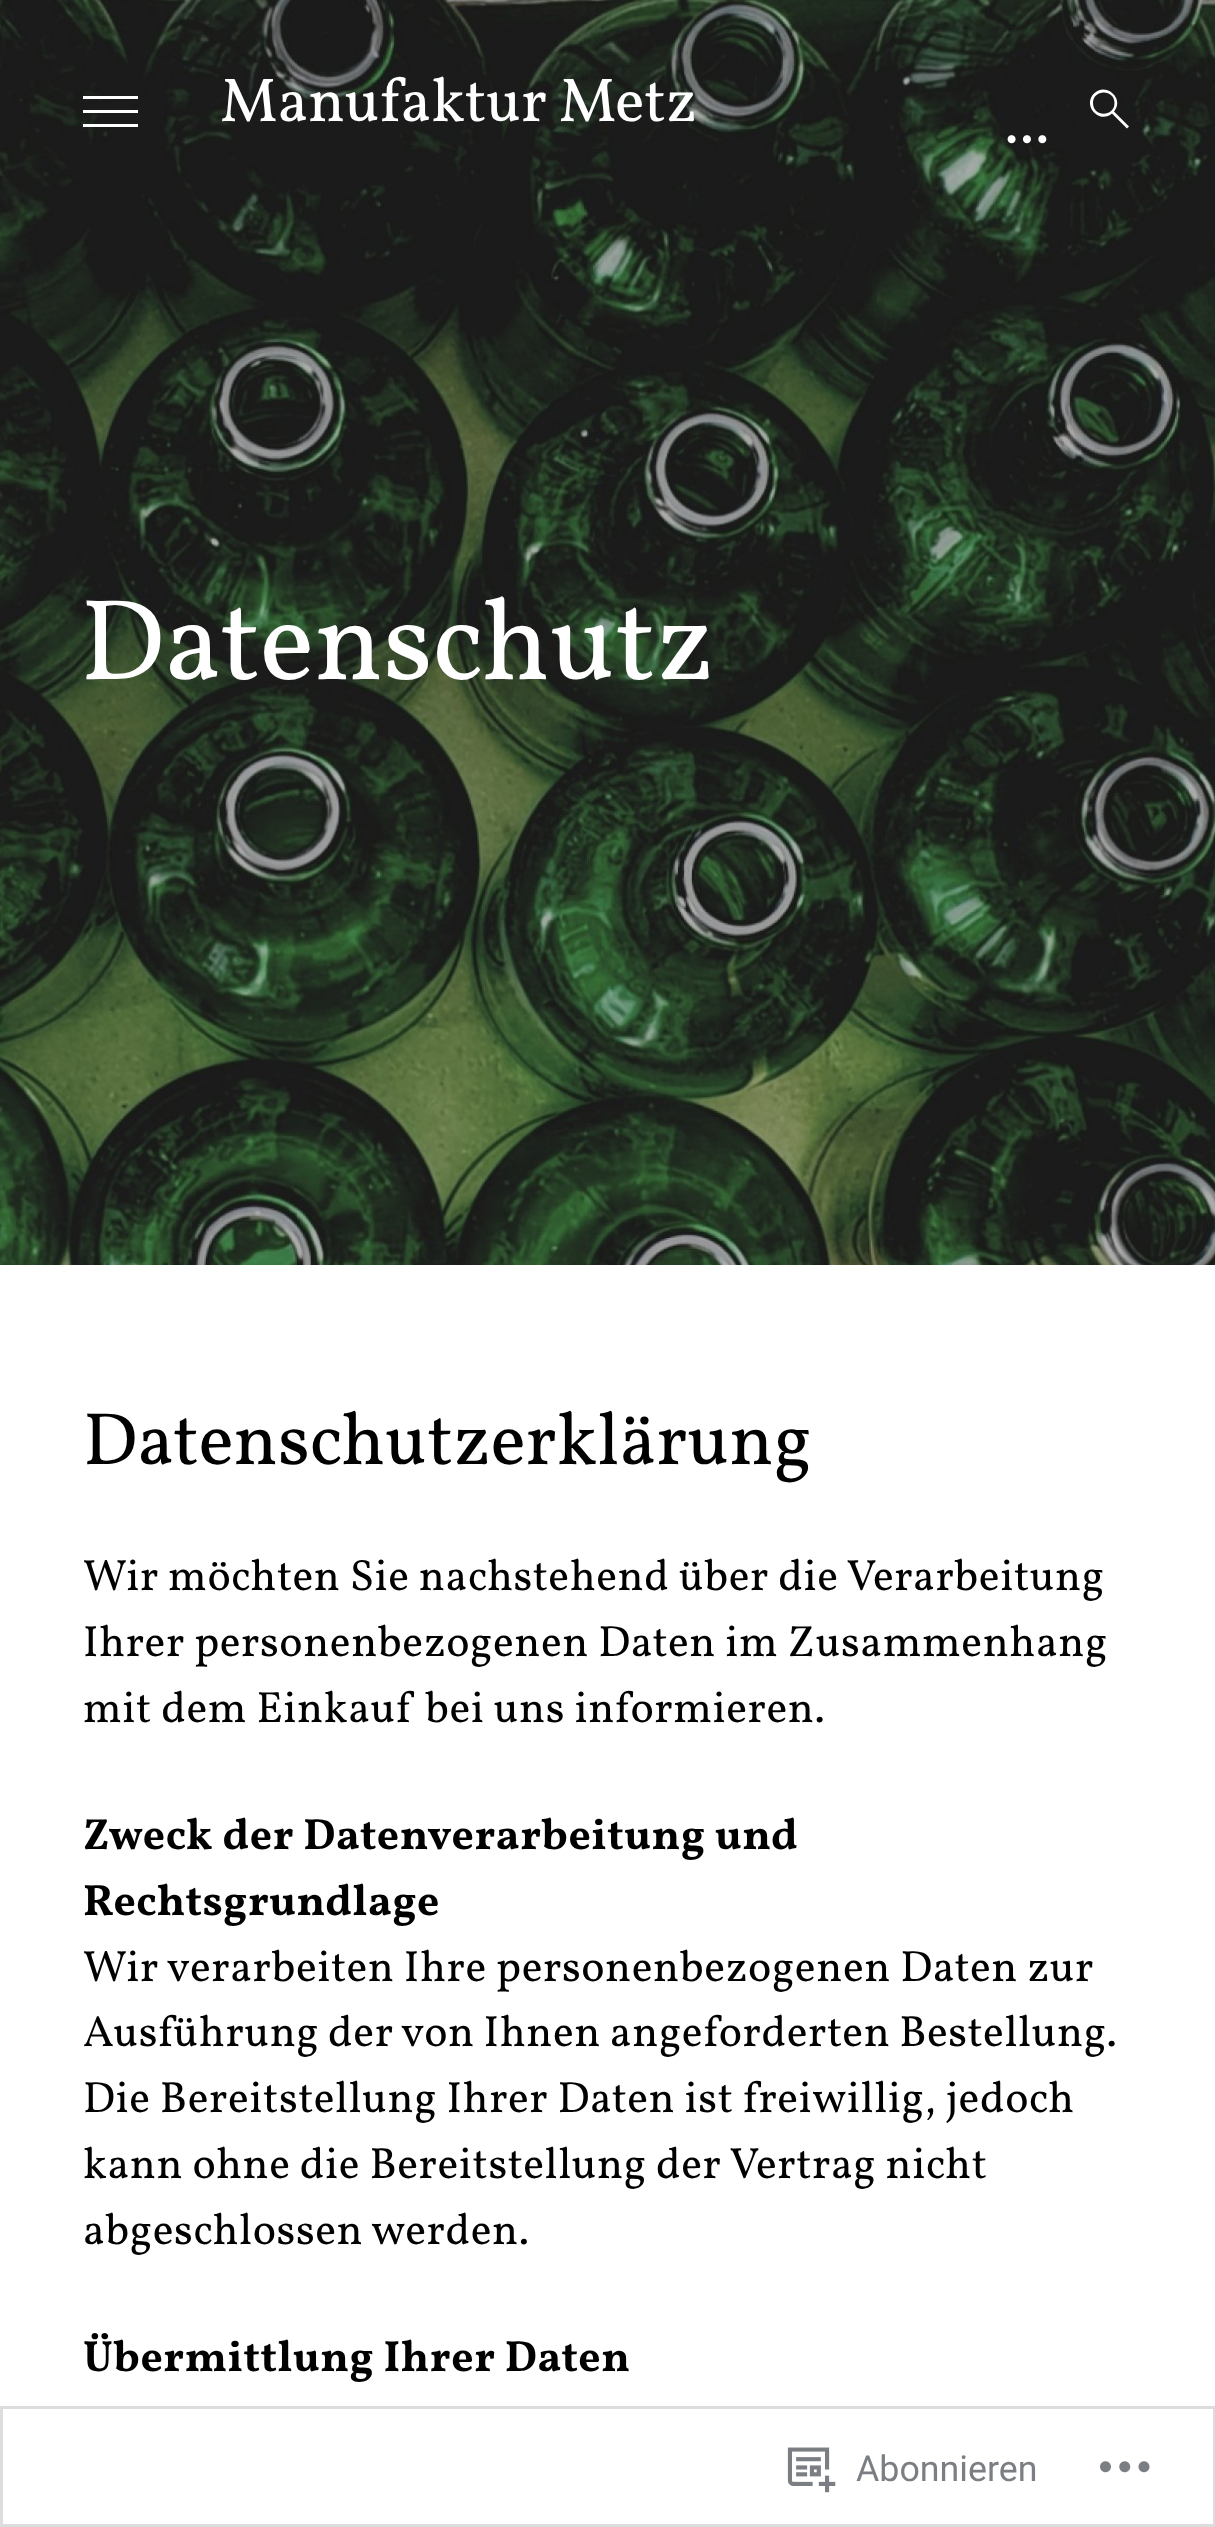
(async () => {
const canvas = document.querySelector("canvas")
canvas.width = 1215
canvas.height = 2527
const c = canvas.getContext("2d")
c.miterLimit = 4
c.fontKerning = "normal"
function T(s,x,y){c.fillText(s,x,y)}
function R(x,y,w,h){c.fillRect(x,y,w,h)}
async function I(src,x,y,w,h){const img=new Image();img.src=src;await img.decode();c.drawImage(img,x,y,w,h)}
let path
c.fillStyle="#fff"
R(0,0,1215,2527)
await I("2.png",0,0,1215,1265)
R(83,110,55,3)
R(83,96,55,3)
R(83,124,55,3)
c.letterSpacing="-0.25px"
c.font="62px Vollkorn"
T("Manufaktur Metz",220,121)
await I("1.png",1007,135,40,9)
path = new Path2D("M1129 126.5l-15-15c11-12.5-8-30-20-18c-12 12 5.5 31 18 20l15 15zm-36-23.5c0-14 21.5-14 21.5 0c0 14-21.5 14.5-21.5 0z")
c.fill(path)
c.letterSpacing="0px"
c.font="115.5px Vollkorn"
T("Datenschutz",80,679)
c.font="74.25px Vollkorn"
c.fillStyle="#000"
T("Datenschutzerklärung",83,1464)
c.letterSpacing="0.55px"
c.font="43.8px Vollkorn"
T("Wir möchten Sie nachstehend über die Verarbeitung",83,1590)
T("Ihrer personenbezogenen Daten im Zusammenhang",83,1656)
T("mit dem Einkauf bei uns informieren.",83,1722)
c.font="bold 43.8px Vollkorn"
T("Zweck der Datenverarbeitung und",83,1849)
T("Rechtsgrundlage",83,1915)
c.font="43.8px Vollkorn"
T("Wir verarbeiten Ihre personenbezogenen Daten zur",83,1981)
c.wordSpacing="-0.5px"
T("Ausführung der von Ihnen angeforderten Bestellung.",83,2046)
c.wordSpacing="0px"
T("Die Bereitstellung Ihrer Daten ist freiwillig, jedoch",83,2112)
T("kann ohne die Bereitstellung der Vertrag nicht",83,2178)
T("abgeschlossen werden.",83,2244)
c.font="bold 43.8px Vollkorn"
T("Übermittlung Ihrer Daten",83,2371)
c.strokeStyle="#dcdcdefa"
c.lineWidth=3
c.strokeRect(1.5,2407.5,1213,118)
await I("3.png",787,2447,49,46)
c.letterSpacing="0px"
c.font="35.75px Roboto"
c.fillStyle="#7b7f84"
T("Abonnieren",856,2481)
await I("4.png",1100,2461,50,12)
})()
